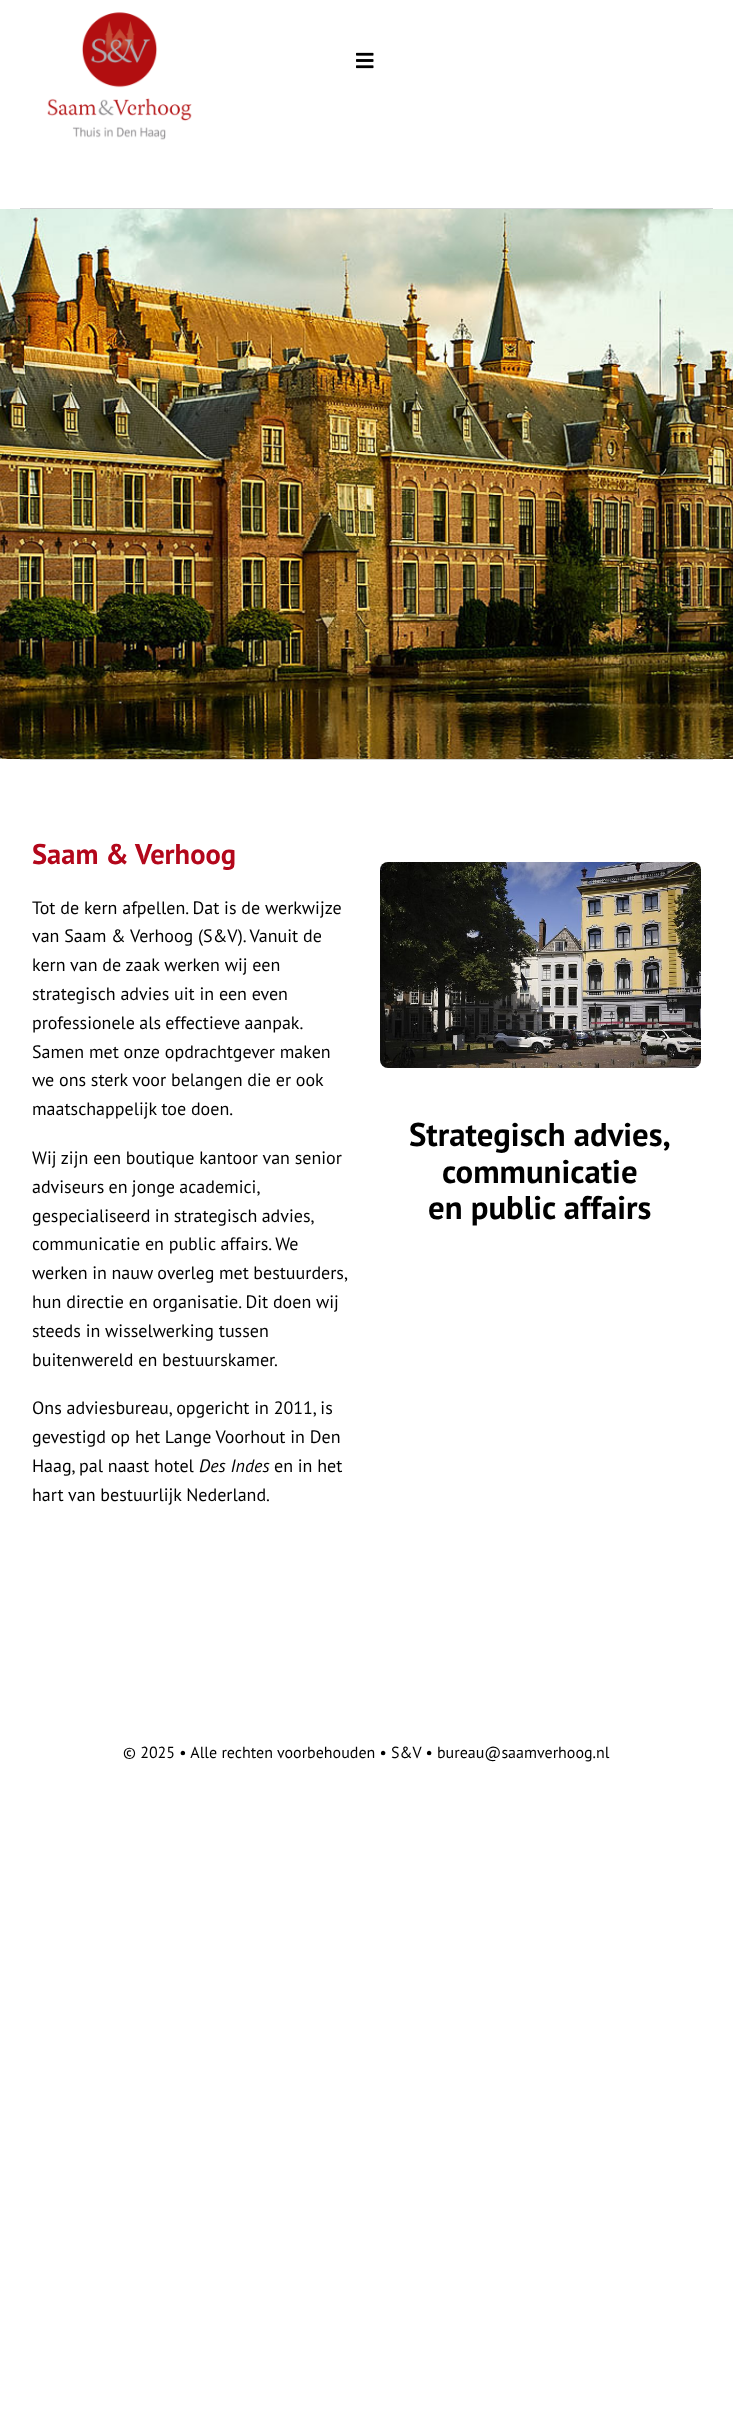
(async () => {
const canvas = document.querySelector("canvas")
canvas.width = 733
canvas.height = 2412
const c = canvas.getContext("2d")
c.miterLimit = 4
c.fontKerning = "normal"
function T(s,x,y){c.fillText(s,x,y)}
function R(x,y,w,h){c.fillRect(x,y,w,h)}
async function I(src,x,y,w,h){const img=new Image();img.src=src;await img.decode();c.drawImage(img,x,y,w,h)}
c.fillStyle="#fff"
R(0,0,733,2412)
await I("1.png",47,12,145,128)
await I("2.png",356,52,18,17)
c.fillStyle="#d2d3d4"
R(20,208,693,1)
R(20,759,693,1)
await I("3.png",0,209,733,550)
c.font="bold 28.5px PT Sans"
c.fillStyle="#b3071b"
T("Saam & Verhoog",32,864)
c.font="18px PT Sans"
c.fillStyle="#000"
T("Tot de kern afpellen. Dat is de werkwijze",32,914)
T("van Saam & Verhoog (S&V). Vanuit de",32,942)
T("kern van de zaak werken wij een",32,971)
T("strategisch advies uit in een even",32,1000)
c.wordSpacing="-0.5px"
T("professionele als effectieve aanpak.",32,1029)
c.wordSpacing="0px"
T("Samen met onze opdrachtgever maken",32,1058)
T("we ons sterk voor belangen die er ook",32,1086)
T("maatschappelijk toe doen.",32,1115)
T("Wij zijn een boutique kantoor van senior",32,1164)
c.wordSpacing="-0.5px"
T("adviseurs en jonge academici,",32,1193)
T("gespecialiseerd in strategisch advies,",32,1222)
c.wordSpacing="0px"
T("communicatie en public affairs. We",32,1250)
c.wordSpacing="-0.25px"
T("werken in nauw overleg met bestuurders,",32,1279)
c.wordSpacing="0px"
T("hun directie en organisatie. Dit doen wij",32,1308)
T("steeds in wisselwerking tussen",32,1337)
T("buitenwereld en bestuurskamer.",32,1366)
T("Ons adviesbureau, opgericht in 2011, is",32,1414)
T("gevestigd op het Lange Voorhout in Den",32,1443)
T("Haag, pal naast hotel",32,1472)
c.font="italic 18px PT Sans"
T("Des Indes",199,1472)
c.font="18px PT Sans"
T("en in het",274,1472)
T("hart van bestuurlijk Nederland.",32,1501)
await I("4.png",380,862,321,206)
c.font="bold 32.75px PT Sans"
T("Strategisch advies,",409,1146)
T("communicatie",442,1183)
T("en public affairs",428,1219)
c.font="16px PT Sans"
T("© 2025 • Alle rechten voorbehouden • S&V • bureau@saamverhoog.nl",123,1758)
})()
